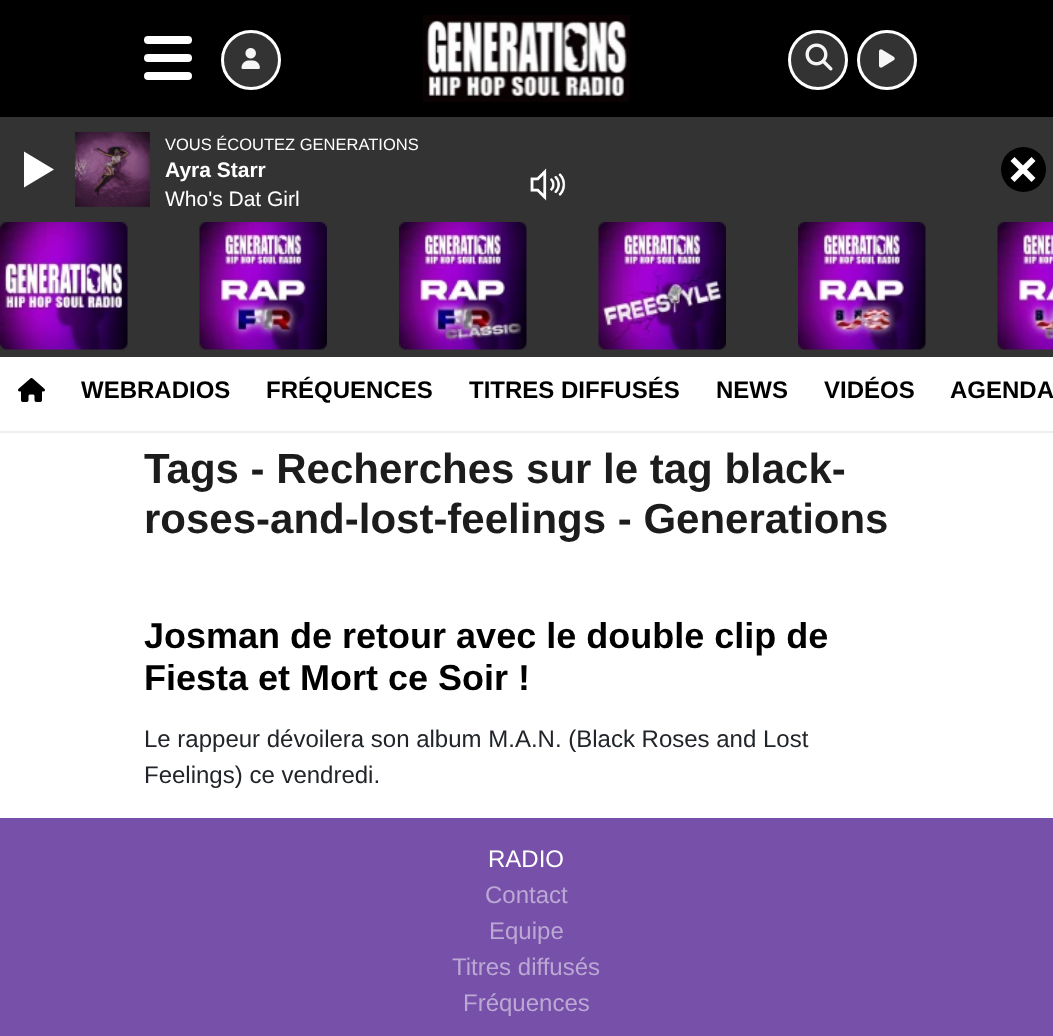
(async () => {
const canvas = document.querySelector("canvas")
canvas.width = 1053
canvas.height = 1036
const c = canvas.getContext("2d")
c.miterLimit = 4
c.fontKerning = "normal"
function T(s,x,y){c.fillText(s,x,y)}
function R(x,y,w,h){c.fillRect(x,y,w,h)}
function Q(x,y,w,h,r){c.beginPath();c.roundRect(x,y,w,h,r);c.fill()}
async function I(src,x,y,w,h){const img=new Image();img.src=src;await img.decode();c.drawImage(img,x,y,w,h)}
let path
c.fillStyle="#fff"
R(0,0,1053,1036)
c.fillStyle="#333"
R(0,117,1053,240)
await I("1.png",75,132,75,75)
c.font="16.5px Liberation Sans"
c.fillStyle="#fff"
T("VOUS ÉCOUTEZ GENERATIONS",165,150)
c.font="bold 21px Liberation Sans"
T("Ayra Starr",165,177)
c.font="21px Liberation Sans"
T("Who's Dat Girl",165,206)
path = new Path2D("M24 187.5v-36l30 18z")
c.fill(path)
await I("2.png",530,168,36,33)
c.fillStyle="#000"
c.beginPath()
c.arc(1023.5,169.5,22.5,0,7)
c.fill()
c.fillStyle="#fff"
path = new Path2D("M1014.5 157l21 21l-4 4l-21-21z")
c.fill(path)
path = new Path2D("M1010.5 178l21-21l4 4l-21 21z")
c.fill(path)
await I("3.png",0,222,128,128)
await I("4.png",199,222,128,128)
await I("5.png",399,222,128,128)
await I("6.png",598,222,128,128)
await I("7.png",798,222,128,128)
await I("8.png",997,222,56,128)
c.fillStyle="#000"
R(0,0,1053,117)
c.fillStyle="#fff"
Q(144,36,48,8,4)
Q(144,54,48,8,4)
Q(144,72,48,8,4)
c.fillStyle="#333"
c.beginPath()
c.arc(251,60,28.5,0,7)
c.fill()
c.strokeStyle="#fff"
c.lineWidth=3
c.stroke()
await I("9.png",241,48,19,21)
await I("10.png",423,15,207,87)
c.beginPath()
c.arc(818,60,28.5,0,7)
c.fill()
c.stroke()
await I("11.png",805,43,28,28)
c.beginPath()
c.arc(887,60,28.5,0,7)
c.fill()
c.stroke()
await I("12.png",879,49,16,19)
c.fillStyle="#eee"
R(0,431,1053,2)
await I("13.png",18,378,27,24)
c.font="bold 24px Liberation Sans"
c.fillStyle="#000"
T("WEBRADIOS",81,398)
T("FRÉQUENCES",266,398)
T("TITRES DIFFUSÉS",469,398)
T("NEWS",716,398)
T("VIDÉOS",824,398)
T("AGENDA",950,398)
c.font="bold 42px Liberation Sans"
c.fillStyle="#1c1c1c"
T("Tags - Recherches sur le tag black-",144,483)
T("roses-and-lost-feelings - Generations",144,533)
c.font="bold 36px Liberation Sans"
c.fillStyle="#000"
T("Josman de retour avec le double clip de",144,648)
T("Fiesta et Mort ce Soir !",144,690)
c.font="24px Liberation Sans"
c.fillStyle="#212529"
T("Le rappeur dévoilera son album M.A.N. (Black Roses and Lost",144,747)
T("Feelings) ce vendredi.",144,783)
c.fillStyle="#7750a9"
R(0,818,1053,218)
c.fillStyle="#fff"
T("RADIO",488,867)
c.fillStyle="#bba8d4"
T("Contact",485,903)
T("Equipe",489,939)
T("Titres diffusés",452,975)
T("Fréquences",463,1011)
})()
